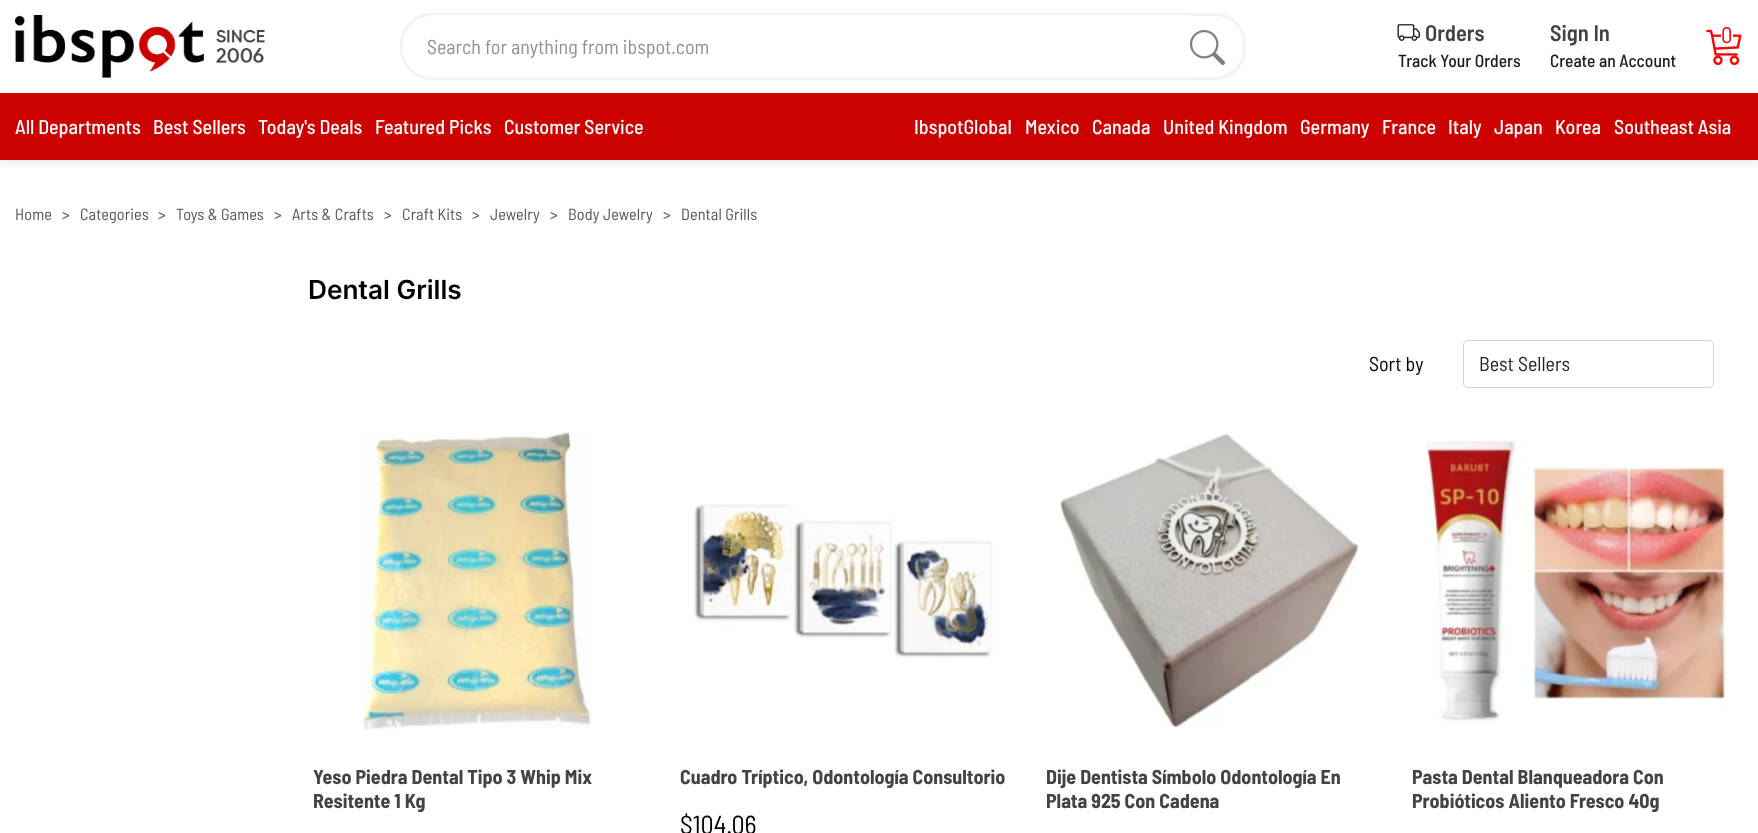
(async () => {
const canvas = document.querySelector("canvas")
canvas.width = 1758
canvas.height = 833
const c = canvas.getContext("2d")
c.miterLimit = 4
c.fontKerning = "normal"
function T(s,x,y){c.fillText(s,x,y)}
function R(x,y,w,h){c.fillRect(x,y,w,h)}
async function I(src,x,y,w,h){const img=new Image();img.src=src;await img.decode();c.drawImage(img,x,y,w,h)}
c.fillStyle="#fff"
R(0,0,1758,833)
c.save()
c.beginPath()
c.rect(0,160,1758,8)
c.clip()
c.fillStyle="#00000017"
c.filter="blur(6px)"
c.beginPath()
c.rect(0,3,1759,160)
c.fill()
c.filter="none"
c.restore()
await I("1.png",15,14,250,64)
c.beginPath()
c.roundRect(401.5,14.5,843,64,29.5)
c.strokeStyle="#f3f3f3"
c.lineWidth=3
c.stroke()
c.save()
c.beginPath()
c.roundRect(403,15,841,63,29)
c.clip()
R(428,15,762,63)
c.restore()
c.font="20px Barlow Semi Condensed"
c.fillStyle="#919191"
T("Search for anything from ibspot.com",427,54)
await I("2.png",1190,30,35,35)
await I("3.png",1397,24,23,17)
c.font="600 22.5px Barlow Semi Condensed"
c.fillStyle="#434343"
T("Orders",1425,41)
c.font="500 17.5px Barlow Semi Condensed"
c.fillStyle="#1c1c1c"
T("Track Your Orders",1398,67)
c.font="600 22.5px Barlow Semi Condensed"
c.fillStyle="#434343"
T("Sign In",1550,41)
c.font="500 17.5px Barlow Semi Condensed"
c.fillStyle="#1c1c1c"
T("Create an Account",1550,67)
await I("4.png",1706,29,36,36)
c.fillStyle="#fff"
R(1721,34,12,3)
c.font="22.5px Barlow Semi Condensed"
c.fillStyle="#f00"
T("0",1721,43)
c.fillStyle="#cc0200"
R(0,93,1758,67)
c.font="500 20px Barlow Semi Condensed"
c.fillStyle="#fff"
T("All Departments",15,134)
T("Best Sellers",153,134)
T("Today's Deals",258,134)
T("Featured Picks",375,134)
T("Customer Service",504,134)
T("IbspotGlobal",914,134)
T("Mexico",1025,134)
T("Canada",1092,134)
T("United Kingdom",1163,134)
T("Germany",1300,134)
T("France",1382,134)
T("Italy",1448,134)
T("Japan",1494,134)
T("Korea",1555,134)
T("Southeast Asia",1614,134)
c.letterSpacing="0.1px"
c.font="16.25px Barlow Semi Condensed"
c.fillStyle="#555"
T("Home",15,220)
T(">",62,220)
T("Categories",80,220)
T(">",158,220)
T("Toys & Games",176,220)
T(">",274,220)
T("Arts & Crafts",292,220)
T(">",384,220)
T("Craft Kits",402,220)
T(">",472,220)
T("Jewelry",490,220)
T(">",550,220)
T("Body Jewelry",568,220)
T(">",663,220)
T("Dental Grills",681,220)
c.letterSpacing="0px"
c.font="600 26.25px Inter"
c.fillStyle="#000"
T("Dental Grills",308,299)
c.font="20px Barlow Semi Condensed"
T("Sort by",1369,371)
c.beginPath()
c.roundRect(1463.5,340.5,250,47,4.5)
c.strokeStyle="#ced4da"
c.lineWidth=1
c.stroke()
c.fillStyle="#212529"
T("Best Sellers",1479,371)
await I("5.png",361,431,232,299)
c.font="bold 20px Barlow Semi Condensed"
c.fillStyle="#434343"
T("Yeso Piedra Dental Tipo 3 Whip Mix",313,784)
T("Resitente 1 Kg",313,808)
await I("6.png",694,504,299,154)
T("Cuadro Tríptico, Odontología Consultorio",680,784)
c.font="26px Barlow Semi Condensed"
c.fillStyle="#000"
T("$104.06",680,834)
await I("7.png",1060,433,300,295)
c.font="bold 20px Barlow Semi Condensed"
c.fillStyle="#434343"
T("Dije Dentista Símbolo Odontología En",1046,784)
T("Plata 925 Con Cadena",1046,808)
await I("8.png",1426,440,301,281)
T("Pasta Dental Blanqueadora Con",1412,784)
T("Probióticos Aliento Fresco 40g",1412,808)
})()
